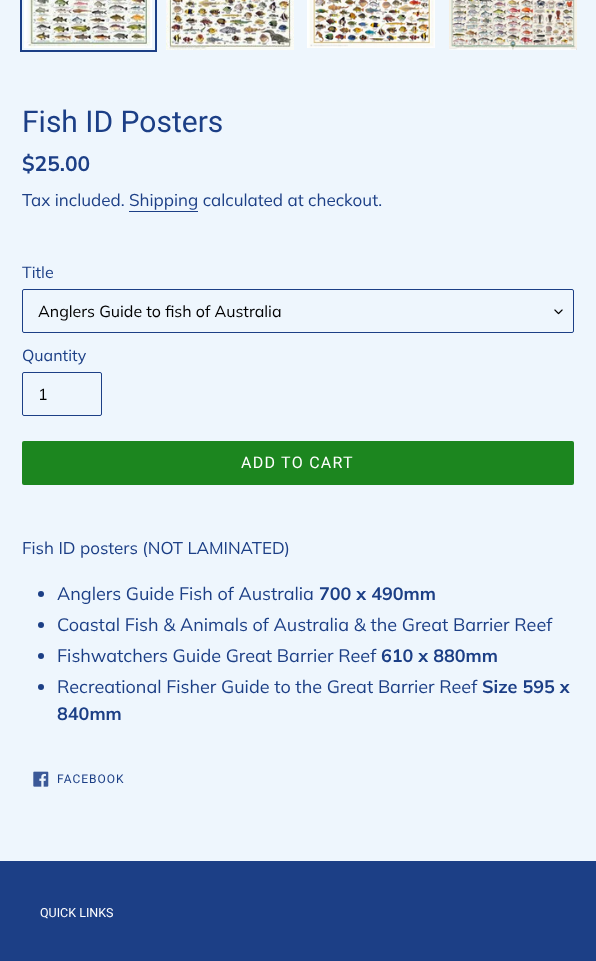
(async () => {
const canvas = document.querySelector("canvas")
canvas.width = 596
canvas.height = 961
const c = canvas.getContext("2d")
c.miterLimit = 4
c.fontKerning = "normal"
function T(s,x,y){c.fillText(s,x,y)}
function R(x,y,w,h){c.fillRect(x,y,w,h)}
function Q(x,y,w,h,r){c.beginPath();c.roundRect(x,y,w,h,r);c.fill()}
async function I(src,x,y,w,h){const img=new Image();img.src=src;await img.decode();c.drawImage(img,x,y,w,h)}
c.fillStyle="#eef6fd"
R(0,0,596,961)
c.strokeStyle="#1c3f86"
c.lineWidth=2
c.strokeRect(21,-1,135,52)
await I("1.png",24,0,128,48)
await I("2.png",166,0,128,50)
await I("3.png",307,0,128,48)
await I("4.png",449,0,128,50)
c.font="30px Roboto"
c.fillStyle="#1c3f86"
T("Fish ID Posters",22,132)
c.font="bold 21px Muli"
T("$25.00",22,171)
c.font="17px Muli"
T("Tax included. Shipping calculated at checkout.",22,206)
R(129,211,69,1)
c.font="16px Muli"
T("Title",22,278)
await I("5.png",554,309,9,6)
c.beginPath()
c.roundRect(22.5,289.5,551,43,1.5)
c.lineWidth=1
c.stroke()
c.fillStyle="#000"
T("Anglers Guide to fish of Australia",38,317)
c.fillStyle="#1c3f86"
T("Quantity",22,361)
c.beginPath()
c.roundRect(22.5,372.5,79,43,1.5)
c.stroke()
c.fillStyle="#000"
T("1",38,400)
c.fillStyle="#1c861f"
Q(22,441,552,44,2)
c.letterSpacing="1.25px"
c.font="16px Roboto"
c.fillStyle="#fff"
T("ADD TO CART",241,468)
c.letterSpacing="0px"
c.font="17px Muli"
c.fillStyle="#1c3f86"
T("Fish ID posters (NOT LAMINATED)",22,554)
c.beginPath()
c.arc(41,594,3,0,7)
c.fill()
c.font="18px Muli"
T("Anglers Guide Fish of Australia",57,600)
c.font="bold 18px Muli"
T("700 x 490mm",319,600)
c.beginPath()
c.arc(41,625,3,0,7)
c.fill()
c.font="18px Muli"
T("Coastal Fish & Animals of Australia & the Great Barrier Reef",57,631)
c.beginPath()
c.arc(41,656,3,0,7)
c.fill()
T("Fishwatchers Guide Great Barrier Reef",57,662)
c.font="bold 18px Muli"
T("610 x 880mm",381,662)
c.beginPath()
c.arc(41,687,3,0,7)
c.fill()
c.font="18px Muli"
T("Recreational Fisher Guide to the Great Barrier Reef",57,693)
c.font="bold 18px Muli"
T("Size 595 x",482,693)
T("840mm",57,720)
await I("6.png",33,771,16,16)
c.letterSpacing="1px"
c.font="12px Roboto"
T("FACEBOOK",57,783)
R(0,861,596,100)
c.letterSpacing="0px"
c.font="12.5px Roboto"
c.fillStyle="#fff"
T("QUICK LINKS",40,917)
})()
